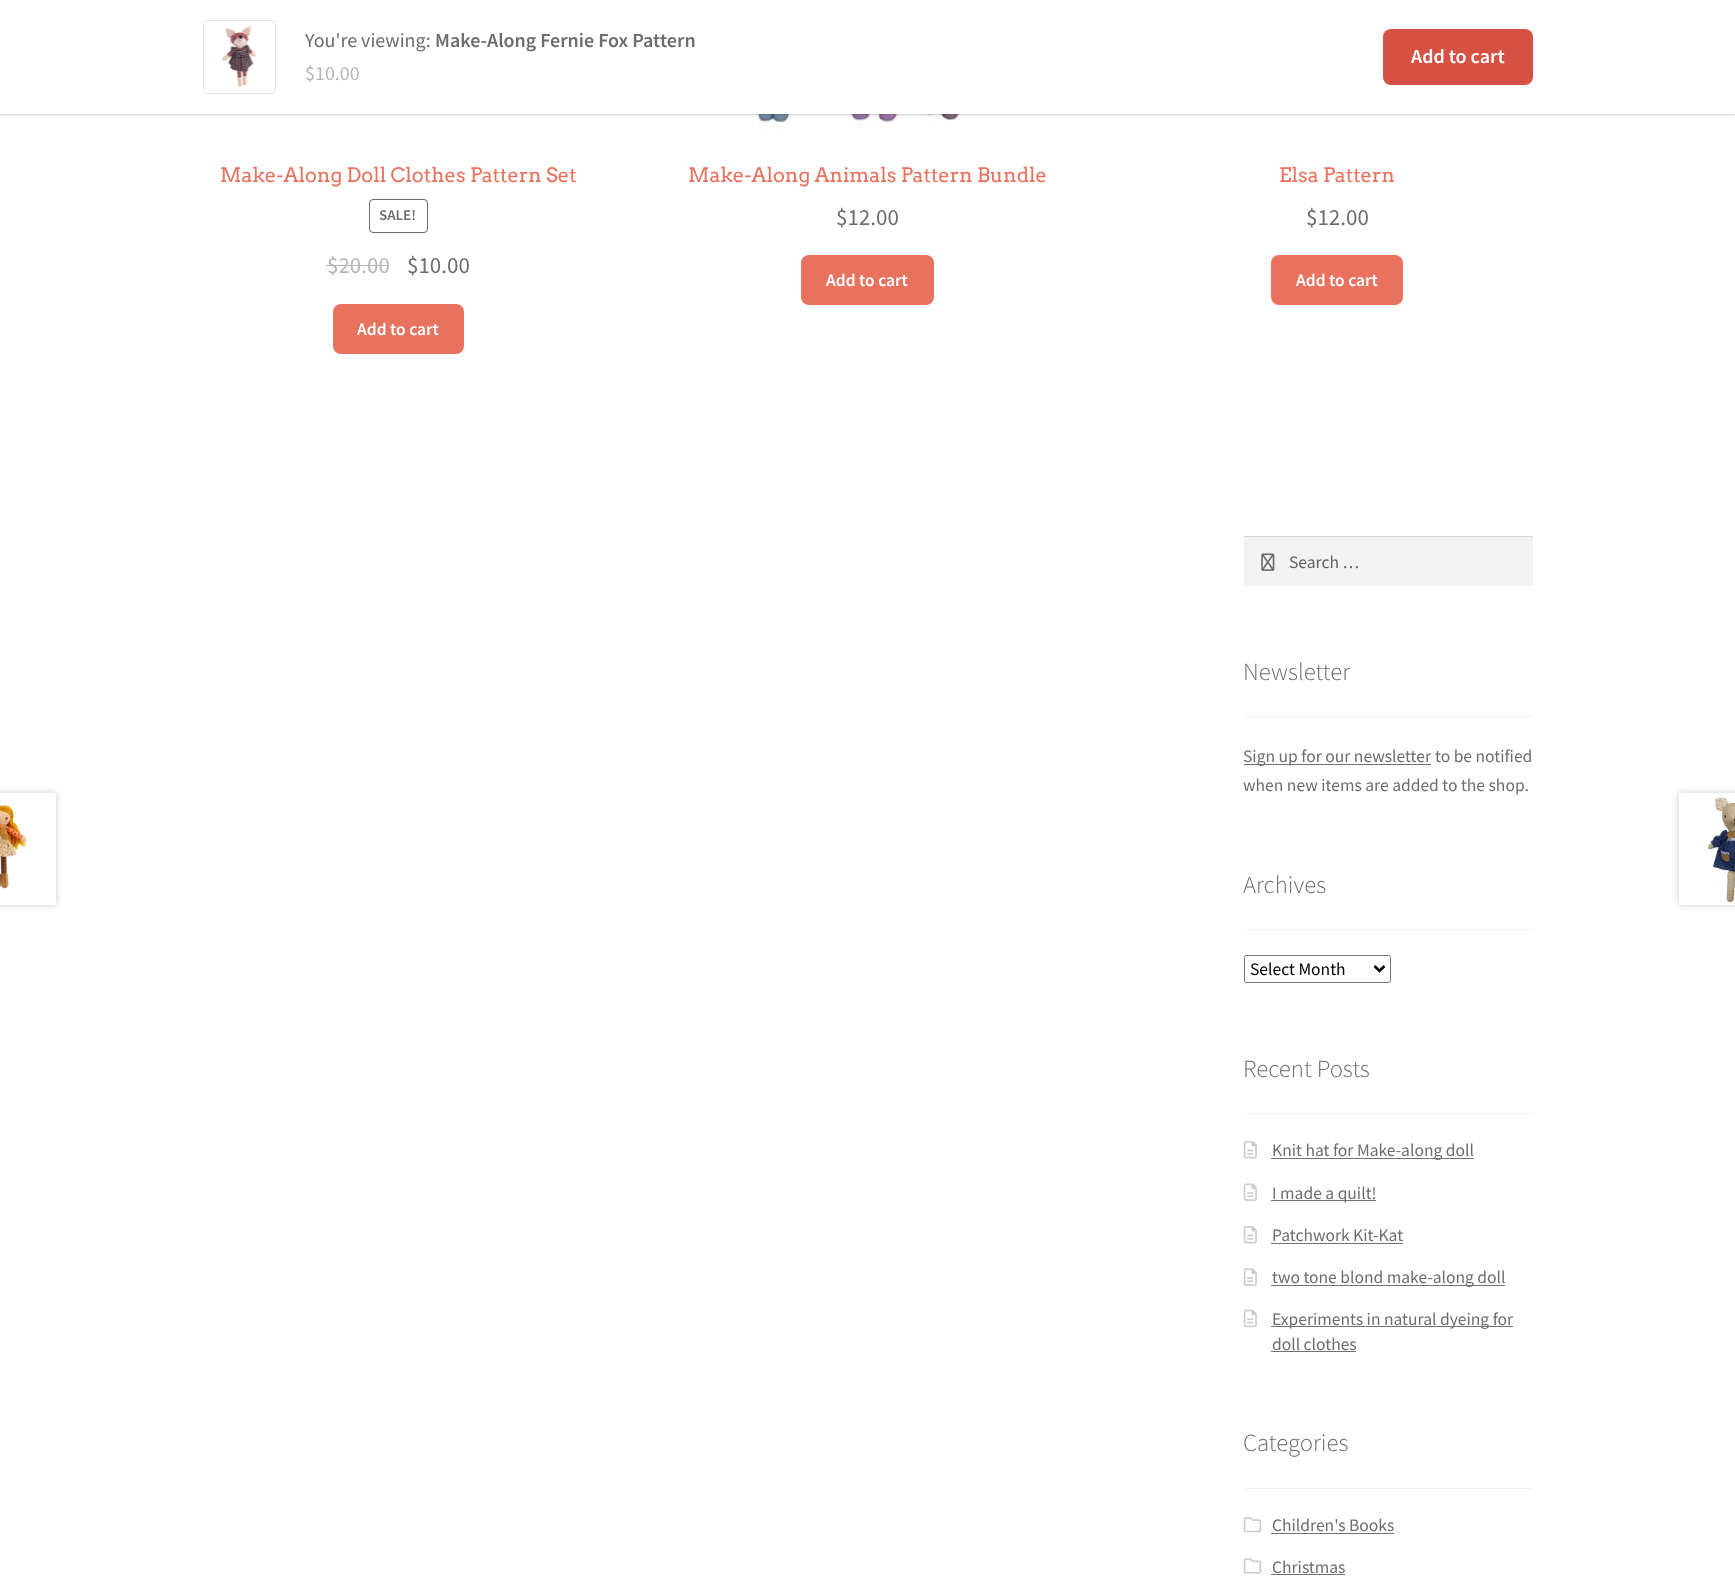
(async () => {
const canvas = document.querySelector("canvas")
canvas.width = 1735
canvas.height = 1585
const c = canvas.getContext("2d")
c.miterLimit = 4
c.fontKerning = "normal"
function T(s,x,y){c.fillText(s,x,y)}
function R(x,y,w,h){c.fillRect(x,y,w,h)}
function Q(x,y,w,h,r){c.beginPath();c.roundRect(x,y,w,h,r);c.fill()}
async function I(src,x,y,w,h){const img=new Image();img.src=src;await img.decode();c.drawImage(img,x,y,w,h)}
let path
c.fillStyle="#fff"
R(0,0,1735,1585)
await I("2.png",711,114,279,16)
c.fillStyle="#00000033"
c.filter="blur(1px)"
c.beginPath()
c.rect(0,1,1735,114)
c.fill()
c.filter="none"
c.fillStyle="#fff"
R(0,0,1735,114)
c.beginPath()
c.roundRect(203.5,20.5,72,73,3.5)
c.strokeStyle="#e6e6e6"
c.stroke()
await I("1.png",221,25,36,63)
c.font="20px Source Sans Pro"
c.fillStyle="#6d6d6d"
T("You're viewing:",305,47)
c.font="600 20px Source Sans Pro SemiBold"
T("Make-Along Fernie Fox Pattern",435,47)
c.font="20px Source Sans Pro"
c.fillStyle="#b6b6b6"
T("$10.00",305,80)
c.fillStyle="#d65044"
Q(1383,29,150,56,8)
c.font="600 20px Source Sans Pro SemiBold"
c.fillStyle="#fff"
T("Add to cart",1411,63)
c.font="20px Arvo"
c.fillStyle="#e8725e"
T("Make-Along Doll Clothes Pattern Set",220,182)
c.beginPath()
c.roundRect(369.5,199.5,58,33,3.5)
c.strokeStyle="#6d6d6d"
c.stroke()
c.font="600 15px Source Sans Pro SemiBold"
c.fillStyle="#6d6d6d"
T("SALE!",379,220)
c.font="23px Source Sans Pro"
c.fillStyle="#b6b6b6"
T("$20.00",327,273)
R(326,265,63,1)
c.fillStyle="#6d6d6d"
T("$10.00",407,273)
c.fillStyle="#e8725e"
Q(333,304,131,50,8)
c.font="600 17.5px Source Sans Pro SemiBold"
c.fillStyle="#fff"
T("Add to cart",357,335)
c.font="20px Arvo"
c.fillStyle="#e8725e"
T("Make-Along Animals Pattern Bundle",688,182)
c.font="23px Source Sans Pro"
c.fillStyle="#6d6d6d"
T("$12.00",836,225)
c.fillStyle="#e8725e"
Q(801,255,133,50,8)
c.font="600 17.5px Source Sans Pro SemiBold"
c.fillStyle="#fff"
T("Add to cart",826,286)
c.font="20px Arvo"
c.fillStyle="#e8725e"
T("Elsa Pattern",1279,182)
c.font="23px Source Sans Pro"
c.fillStyle="#6d6d6d"
T("$12.00",1306,225)
c.fillStyle="#e8725e"
Q(1271,255,132,50,8)
c.font="600 17.5px Source Sans Pro SemiBold"
c.fillStyle="#fff"
T("Add to cart",1296,286)
c.save()
path = new Path2D("M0 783h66v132h-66zm-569 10h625v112h-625z")
c.clip(path,"evenodd")
c.fillStyle="#00000033"
c.filter="blur(3px)"
c.beginPath()
c.rect(-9,793,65,112)
c.fill()
c.filter="none"
c.restore()
await I("3.png",0,804,27,87)
c.save()
path = new Path2D("M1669 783h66v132h-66zm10 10h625v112h-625z")
c.clip(path,"evenodd")
c.fillStyle="#00000033"
c.filter="blur(3px)"
c.beginPath()
c.rect(1679,793,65,112)
c.fill()
c.filter="none"
c.restore()
await I("4.png",1707,797,28,106)
c.fillStyle="#f2f2f2"
R(1244,537,289,49)
await I("5.png",1261,553,14,18)
c.fillStyle="#d4d4d4"
R(1244,536,289,1)
c.font="17.5px Source Sans Pro"
c.fillStyle="#616161"
T("Search …",1289,568)
c.fillStyle="#f2f2f2"
R(1244,716,289,1)
c.font="300 24.75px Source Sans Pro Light"
c.fillStyle="#6d6d6d"
T("Newsletter",1243,680)
c.fillStyle="#727272"
R(1244,764,187,1)
c.font="17.5px Source Sans Pro"
c.fillStyle="#6d6d6d"
T("Sign up for our newsletter",1243,762)
T("to be notified",1435,762)
T("when new items are added to the shop.",1243,791)
c.fillStyle="#f2f2f2"
R(1244,929,289,1)
c.font="300 24.75px Source Sans Pro Light"
c.fillStyle="#6d6d6d"
T("Archives",1243,893)
c.beginPath()
c.roundRect(1244.5,955.5,146,27,2)
c.strokeStyle="#767676"
c.stroke()
path = new Path2D("M1374.5 966l5 5l5-5")
c.strokeStyle="#000"
c.lineWidth=2.5
c.stroke(path)
c.font="17.5px Source Sans Pro"
c.fillStyle="#000"
T("Select Month",1250,975)
c.fillStyle="#f2f2f2"
R(1244,1113,289,1)
c.font="300 24.75px Source Sans Pro Light"
c.fillStyle="#6d6d6d"
T("Recent Posts",1243,1077)
await I("6.png",1243,1141,14,18)
c.fillStyle="#727272"
R(1271,1158,203,1)
c.font="17.5px Source Sans Pro"
c.fillStyle="#6d6d6d"
T("Knit hat for Make-along doll",1272,1156)
await I("7.png",1243,1183,14,18)
c.fillStyle="#727272"
R(1271,1200,105,1)
c.fillStyle="#6d6d6d"
T("I made a quilt!",1272,1199)
await I("6.png",1243,1226,14,18)
T("Patchwork Kit-Kat",1272,1241)
c.fillStyle="#727272"
R(1271,1243,132,1)
await I("7.png",1243,1268,14,18)
R(1271,1285,234,1)
c.fillStyle="#6d6d6d"
T("two tone blond make-along doll",1272,1283)
await I("8.png",1243,1309,14,19)
c.fillStyle="#727272"
R(1271,1326,242,1)
c.fillStyle="#6d6d6d"
T("Experiments in natural dyeing for",1272,1325)
T("doll clothes",1272,1350)
c.fillStyle="#727272"
R(1271,1351,85,1)
c.fillStyle="#f2f2f2"
R(1244,1488,289,1)
c.font="300 24.75px Source Sans Pro Light"
c.fillStyle="#6d6d6d"
T("Categories",1243,1451)
await I("9.png",1243,1517,19,16)
c.font="17.5px Source Sans Pro"
T("Children's Books",1272,1531)
c.fillStyle="#727272"
R(1271,1533,123,1)
await I("10.png",1243,1558,19,16)
c.fillStyle="#6d6d6d"
T("Christmas",1272,1573)
c.fillStyle="#727272"
R(1271,1574,74,1)
})()
